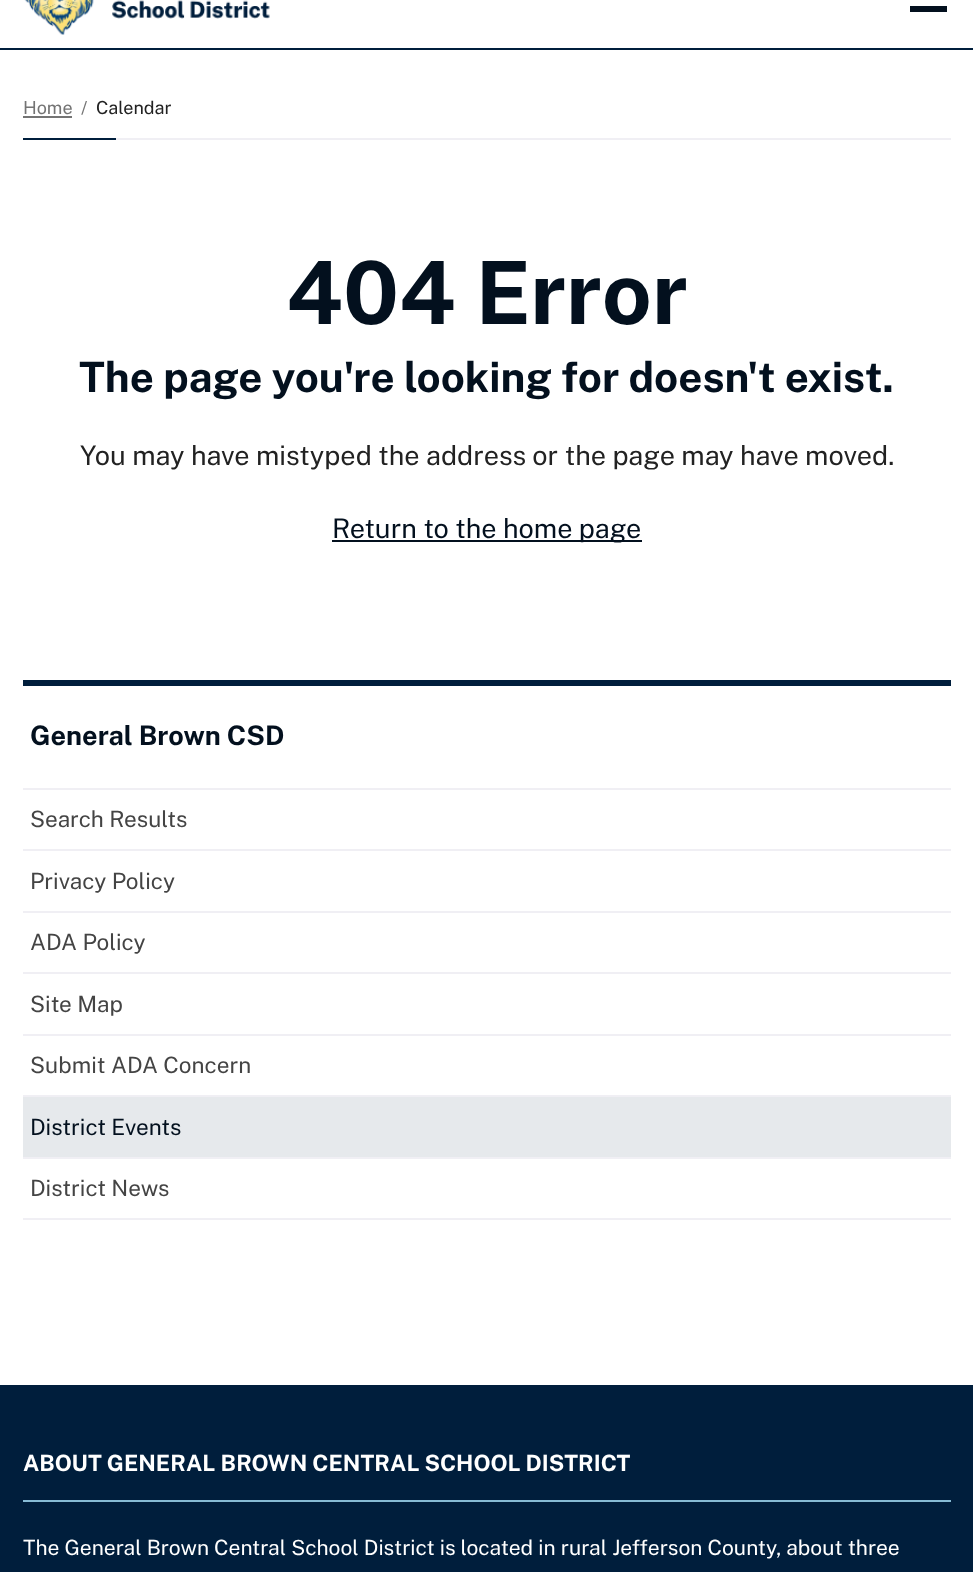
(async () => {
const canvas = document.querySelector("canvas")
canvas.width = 973
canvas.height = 1572
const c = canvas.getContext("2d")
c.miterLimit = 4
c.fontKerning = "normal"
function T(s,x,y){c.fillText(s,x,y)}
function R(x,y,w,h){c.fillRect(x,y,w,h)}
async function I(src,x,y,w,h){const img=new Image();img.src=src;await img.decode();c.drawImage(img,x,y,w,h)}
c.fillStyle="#fff"
R(0,0,973,1572)
c.fillStyle="#001e3c"
R(0,48,973,2)
await I("1.png",24,0,246,35)
c.fillStyle="#03101e"
R(910,6,37,6)
c.fillStyle="#f0eff4"
R(116,138,835,2)
c.font="18px Public Sans"
c.fillStyle="#747474"
T("Home",23,114)
R(23,116,49,2)
T("/",81,114)
c.fillStyle="#222"
T("Calendar",96,114)
c.fillStyle="#001e3c"
R(23,138,93,2)
c.font="bold 87px Public Sans"
c.fillStyle="#03101e"
T("404 Error",286,324)
c.font="bold 42px Public Sans"
T("The page you're looking for doesn't exist.",79,392)
c.font="27px Public Sans"
c.fillStyle="#222"
T("You may have mistyped the address or the page may have moved.",80,465)
c.fillStyle="#03101e"
R(332,540,310,2)
T("Return to the home page",332,538)
c.fillStyle="#001e3c"
R(23,680,928,6)
c.font="bold 27px Public Sans"
c.fillStyle="#03101e"
T("General Brown CSD",30,745)
c.fillStyle="#f0eff4"
R(23,788,928,2)
R(23,849,928,2)
c.font="22.5px Public Sans"
c.fillStyle="#444"
T("Search Results",30,827)
c.fillStyle="#f0eff4"
R(23,911,928,2)
c.fillStyle="#444"
T("Privacy Policy",30,889)
c.fillStyle="#f0eff4"
R(23,972,928,2)
c.fillStyle="#444"
T("ADA Policy",30,950)
c.fillStyle="#f0eff4"
R(23,1034,928,2)
c.fillStyle="#444"
T("Site Map",30,1012)
c.fillStyle="#f0eff4"
R(23,1095,928,2)
c.fillStyle="#444"
T("Submit ADA Concern",30,1073)
c.fillStyle="#f0eff4"
R(23,1157,928,2)
c.fillStyle="#e6e9ec"
R(23,1097,928,60)
c.fillStyle="#03101e"
T("District Events",30,1135)
c.fillStyle="#f0eff4"
R(23,1218,928,2)
c.fillStyle="#444"
T("District News",30,1196)
c.fillStyle="#001e3c"
R(0,1385,973,187)
c.font="bold 22.5px Public Sans"
c.fillStyle="#fff"
T("ABOUT GENERAL BROWN CENTRAL SCHOOL DISTRICT",23,1471)
c.fillStyle="#87bbd5"
R(23,1500,928,2)
c.font="21px Public Sans"
c.fillStyle="#fff"
T("The General Brown Central School District is located in rural Jefferson County, about three",23,1555)
})()
